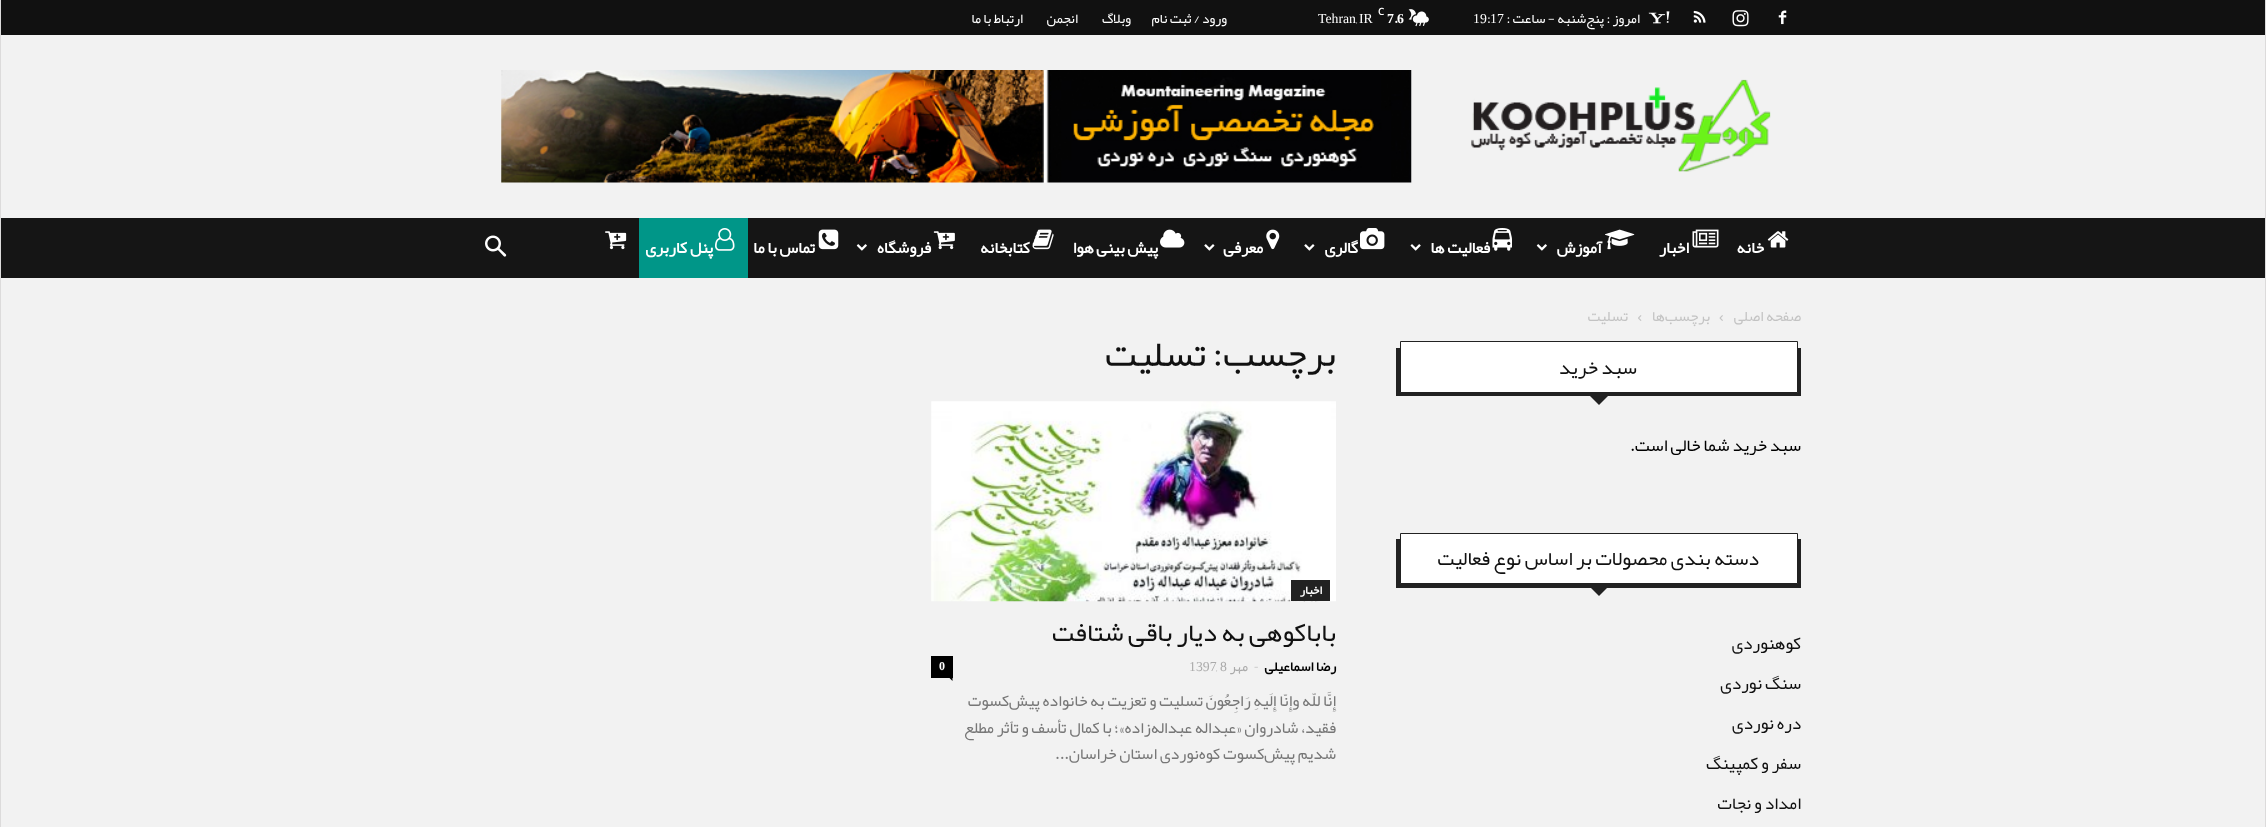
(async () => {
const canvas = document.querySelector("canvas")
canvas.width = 2266
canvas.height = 827
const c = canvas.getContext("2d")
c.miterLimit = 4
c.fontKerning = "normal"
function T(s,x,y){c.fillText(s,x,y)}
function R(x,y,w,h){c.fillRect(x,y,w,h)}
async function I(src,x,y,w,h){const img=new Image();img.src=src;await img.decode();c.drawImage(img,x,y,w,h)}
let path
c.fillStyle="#f2f2f2"
R(0,0,2266,827)
c.fillStyle="#dcdbdb"
R(2265,0,1,278)
R(0,0,1,278)
await I("1.png",1471,79,300,93)
await I("2.png",501,70,911,113)
c.fillStyle="#111"
R(1,0,2264,35)
await I("3.png",1778,10,9,15)
await I("4.png",1732,10,17,17)
await I("5.png",1693,10,13,13)
await I("6.png",1648,11,22,13)
c.direction="rtl"
c.font="13.75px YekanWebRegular"
c.fillStyle="#fff"
T("امروز : پنج‌شنبه - ساعت :",1640,23)
c.direction="ltr"
c.font="13.75px Liberation Serif"
T("17",1490,23)
c.font="13.75px YekanWebRegular"
T(":",1487,23)
c.font="13.75px Liberation Serif"
T("19",1473,23)
await I("7.png",1408,9,21,18)
c.font="600 10px Open Sans"
T("C",1378,15)
c.font="bold 13.75px Liberation Serif"
T("6",1397,23)
c.font="bold 13.75px YekanWebRegular"
T(".",1394,23)
c.font="bold 13.75px Liberation Serif"
T("7",1387,23)
c.font="13.75px Liberation Serif"
T("IR",1359,23)
T("Tehran",1318,23)
c.font="13.75px YekanWebRegular"
T(",",1356,23)
c.direction="rtl"
T("ورود / ثبت نام",1227,23)
T("وبلاگ",1131,23)
T("انجمن",1078,23)
T("ارتباط با ما",1023,23)
c.fillStyle="#151515"
R(1,218,2264,60)
await I("8.png",1767,231,22,17)
c.font="bold 16.25px YekanWebRegular"
c.fillStyle="#fff"
T("خانه",1764,253)
await I("9.png",1692,229,27,19)
T("اخبار",1689,253)
await I("10.png",1605,229,30,21)
T("آموزش",1602,253)
await I("11.png",1536,244,11,7)
await I("12.png",1492,228,20,23)
T("فعالیت ها",1490,253)
await I("13.png",1410,244,11,7)
await I("14.png",1360,228,25,22)
T("گالری",1358,253)
await I("15.png",1304,244,11,7)
await I("16.png",1266,229,14,21)
T("معرفی",1263,253)
await I("15.png",1204,244,11,7)
await I("17.png",1160,229,25,19)
T("پیش بینی هوا",1158,253)
await I("18.png",1032,229,22,21)
T("کتابخانه",1030,253)
await I("19.png",933,231,22,19)
T("فروشگاه",931,253)
await I("11.png",856,244,11,7)
await I("20.png",818,229,21,21)
T("تماس با ما",815,253)
c.fillStyle="#009688"
R(639,218,109,60)
await I("21.png",715,228,20,23)
c.fillStyle="#fff"
T("پنل کاربری",713,253)
await I("22.png",605,231,22,19)
await I("23.png",485,235,22,22)
c.fillStyle="#dcdbdb"
R(2265,278,1,549)
R(0,278,1,549)
c.font="15px YekanWebRegular"
c.fillStyle="#c3c3c3"
T("صفحه اصلی",1801,321)
await I("24.png",1719,315,4,6)
T("برچسب‌ها",1710,321)
await I("25.png",1638,315,4,6)
T("تسلیت",1628,321)
c.fillStyle="#222"
R(1396,348,405,48)
c.fillStyle="#fff"
c.beginPath()
c.rect(1400.5,341.5,397,51)
c.fill()
c.strokeStyle="#222"
c.stroke()
c.font="20px YekanWebRegular"
c.fillStyle="#111"
T("سبد خرید",1637,374)
c.fillStyle="#222"
path = new Path2D("M1589 395h20l-10 10z")
c.fill(path)
c.font="17.5px YekanWebRegular"
c.fillStyle="#000"
T("سبد خرید شما خالی است.",1801,451)
c.fillStyle="#222"
R(1396,539,405,49)
c.fillStyle="#fff"
c.beginPath()
c.rect(1400.5,533.5,397,50)
c.fill()
c.stroke()
c.font="20px YekanWebRegular"
c.fillStyle="#111"
T("دسته بندی محصولات بر اساس نوع فعالیت",1759,565)
c.fillStyle="#222"
path = new Path2D("M1589 586h20l-10 10z")
c.fill(path)
c.font="17.5px YekanWebRegular"
c.fillStyle="#111"
T("کوهنوردی",1801,649)
T("سنگ نوردی",1801,689)
T("دره نوردی",1801,729)
T("سفر و کمپینگ",1801,769)
T("امداد و نجات",1801,809)
c.font="37.5px YekanWebRegular"
T("برچسب: تسلیت",1336,366)
await I("26.png",931,401,405,201)
c.fillStyle="#222"
R(1291,580,39,21)
c.font="bold 12px YekanWebRegular"
c.fillStyle="#fff"
T("اخبار",1322,594)
c.font="26.25px YekanWebRegular"
c.fillStyle="#111"
T("باباکوهی به دیار باقی شتافت",1336,641)
c.font="bold 13.75px YekanWebRegular"
c.fillStyle="#000"
T("رضا اسماعیلی",1336,671)
c.direction="ltr"
c.font="13.75px Open Sans"
c.fillStyle="#ccc"
T("-",1254,671)
c.direction="rtl"
c.font="13.75px YekanWebRegular"
c.fillStyle="#aaa"
T("مهر",1248,671)
c.direction="ltr"
c.font="13.75px Liberation Serif"
T("8",1220,671)
c.font="13.75px YekanWebRegular"
T(",",1216,671)
c.font="13.75px Liberation Serif"
T("1397",1189,671)
c.fillStyle="#000"
R(931,656,22,22)
c.font="bold 12px Liberation Serif"
c.fillStyle="#fff"
T("0",939,670)
c.fillStyle="#000"
path = new Path2D("M949 677.5h3.5v3.5z")
c.fill(path)
c.direction="rtl"
c.font="16.25px YekanWebRegular"
c.fillStyle="#777"
T("إِنَّا للّه وإِنّا إِلَیهِ رَاجِعُونَ تسلیت و تعزیت به خانواده پیش‌کسوت",1336,706)
T("فقید، شادروان «عبداله عبداله‌زاده»؛ با کمال تأسف و تٱثر مطلع",1336,733)
T("شدیم پیش‌کسوت کوه‌نوردی استان خراسان...",1336,759)
})()
